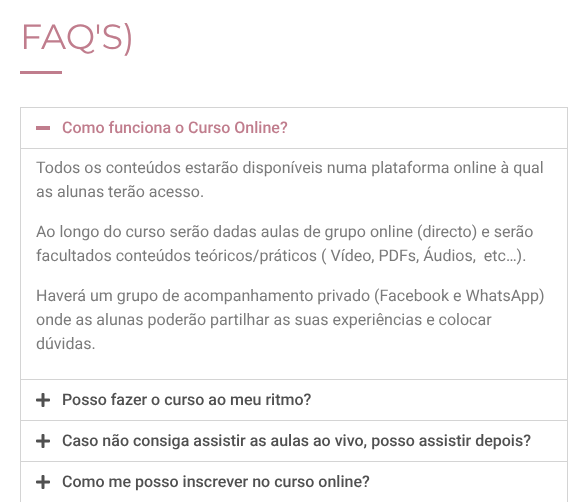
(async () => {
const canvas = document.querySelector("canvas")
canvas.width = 588
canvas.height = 502
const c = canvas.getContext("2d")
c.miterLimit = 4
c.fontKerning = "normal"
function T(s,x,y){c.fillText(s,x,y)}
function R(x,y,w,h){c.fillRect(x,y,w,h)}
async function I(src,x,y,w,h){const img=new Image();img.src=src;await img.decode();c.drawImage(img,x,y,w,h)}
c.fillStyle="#fff"
R(0,0,588,502)
c.font="35px Montserrat"
c.fillStyle="#c07d8d"
T("FAQ'S)",20,49)
R(20,71,42,3)
c.strokeStyle="#d4d4d4"
c.strokeRect(20.5,107.5,547,272)
R(36,126,14,4)
c.font="500 16px Roboto"
T("Como funciona o Curso Online?",62,133)
c.fillStyle="#d4d4d4"
R(21,148,546,1)
c.font="16px Roboto"
c.fillStyle="#7a7a7a"
T("Todos os conteúdos estarão disponíveis numa plataforma online à qual",36,173)
T("as alunas terão acesso.",36,197)
T("Ao longo do curso serão dadas aulas de grupo online (directo) e serão",36,237)
T("facultados conteúdos teóricos/práticos ( Vídeo, PDFs, Áudios,  etc…).",36,261)
T("Haverá um grupo de acompanhamento privado (Facebook e WhatsApp)",36,301)
T("onde as alunas poderão partilhar as suas experiências e colocar",36,325)
T("dúvidas.",36,349)
c.fillStyle="#d4d4d4"
R(567,380,1,122)
R(20,420,548,1)
R(20,380,1,41)
await I("1.png",36,393,14,14)
c.font="500 16px Roboto"
c.fillStyle="#505050"
T("Posso fazer o curso ao meu ritmo?",62,405)
c.fillStyle="#d4d4d4"
R(20,461,548,1)
R(20,421,1,81)
await I("1.png",36,434,14,14)
c.fillStyle="#505050"
T("Caso não consiga assistir as aulas ao vivo, posso assistir depois?",62,446)
await I("1.png",36,475,14,14)
T("Como me posso inscrever no curso online?",62,487)
})()
